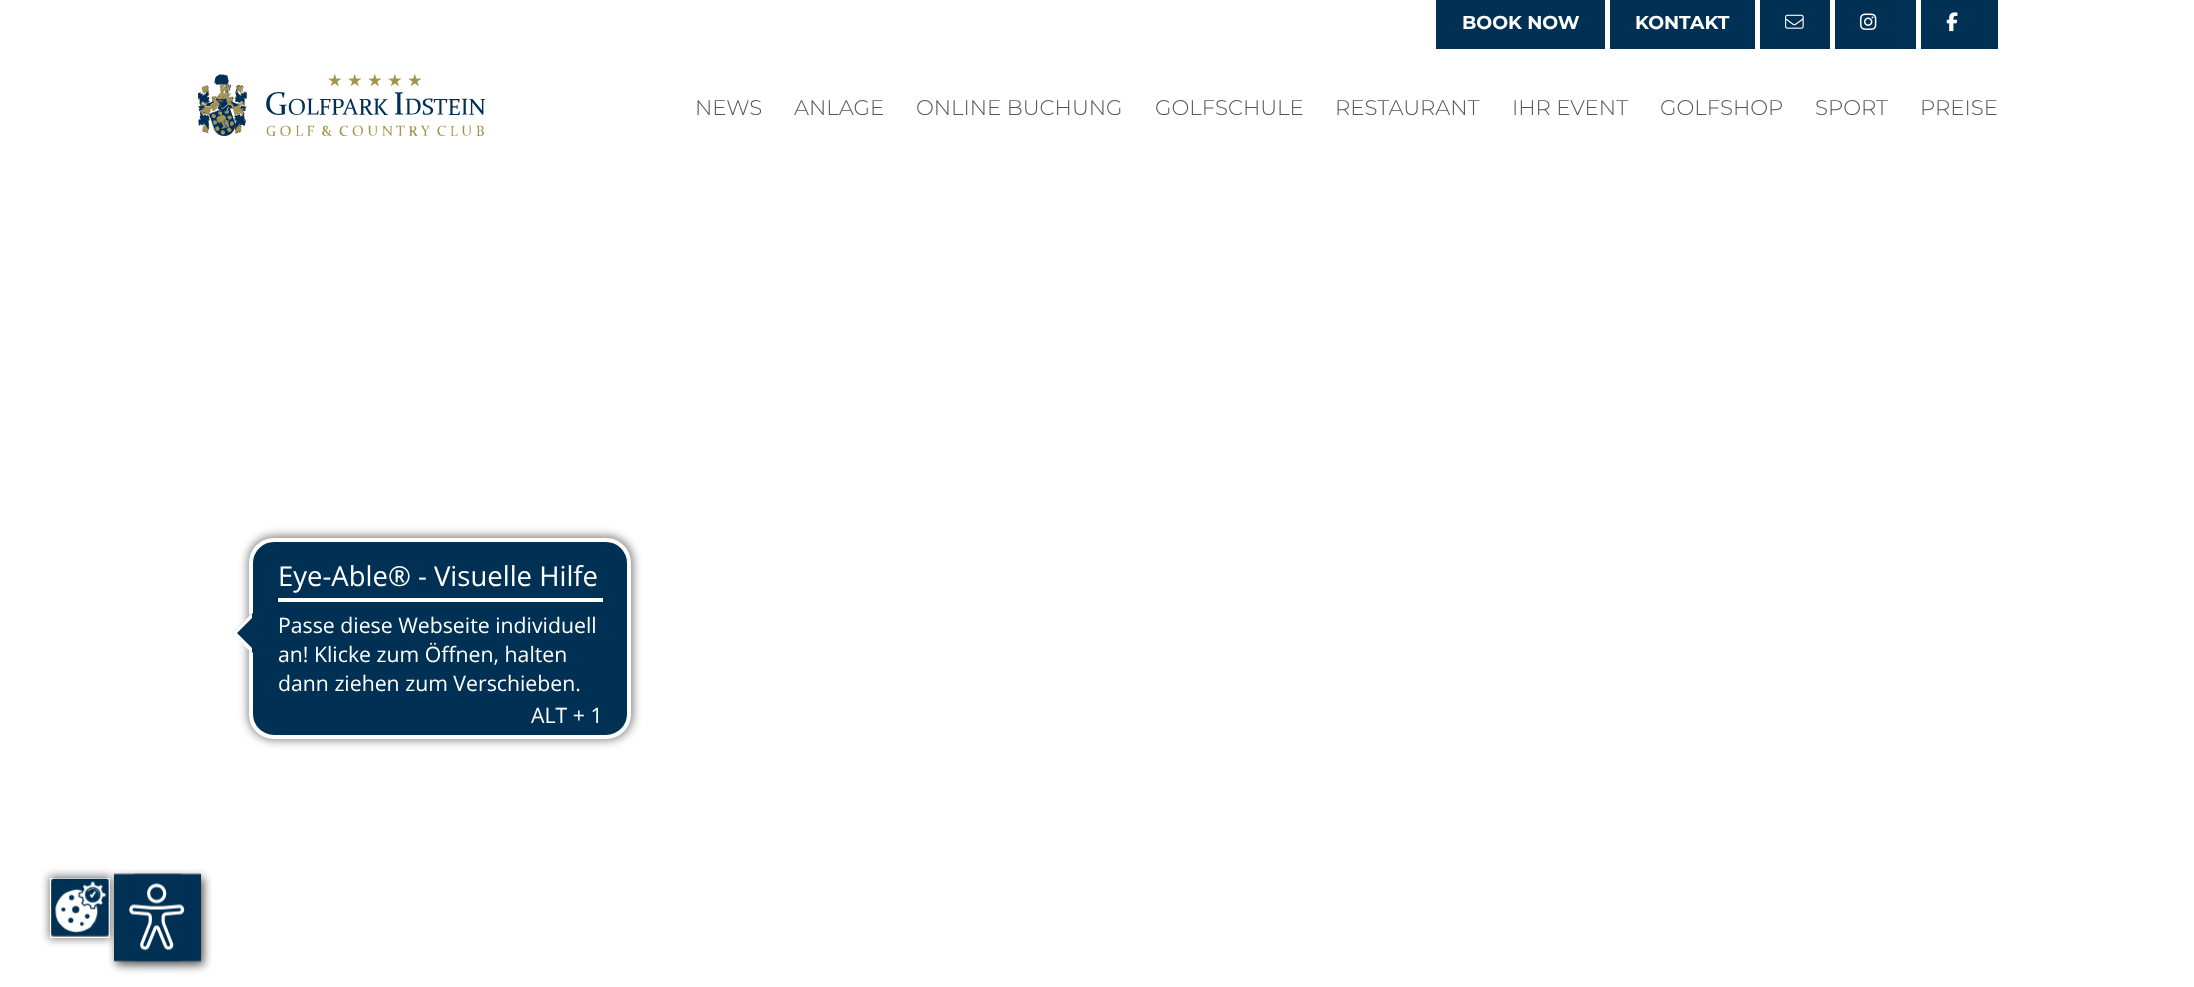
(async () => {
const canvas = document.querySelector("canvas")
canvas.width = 2194
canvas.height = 987
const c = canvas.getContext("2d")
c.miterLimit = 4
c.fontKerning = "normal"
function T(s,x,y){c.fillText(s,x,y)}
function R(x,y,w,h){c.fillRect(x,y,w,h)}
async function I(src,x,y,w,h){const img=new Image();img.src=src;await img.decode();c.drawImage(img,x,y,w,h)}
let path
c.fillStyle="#fff"
R(0,0,2194,987)
c.fillStyle="#003154"
R(1436,0,169,49)
c.font="100 18.75px Montserrat"
c.fillStyle="#fff"
T("BOOK NOW",1462,29)
c.fillStyle="#003154"
R(1610,0,145,49)
c.fillStyle="#fff"
T("KONTAKT",1635,29)
c.fillStyle="#003154"
R(1760,0,70,49)
await I("1.png",1785,14,19,15)
R(1835,0,81,49)
await I("2.png",1860,13,17,17)
R(1921,0,77,49)
await I("3.png",1946,12,12,20)
await I("4.png",198,74,287,62)
c.font="100 21.25px 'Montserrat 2'"
c.fillStyle="#555"
T("NEWS",695,115)
T("ANLAGE",794,115)
T("ONLINE BUCHUNG",916,115)
T("GOLFSCHULE",1155,115)
T("RESTAURANT",1335,115)
T("IHR EVENT",1512,115)
T("GOLFSHOP",1660,115)
T("SPORT",1815,115)
T("PREISE",1920,115)
c.fillStyle="#00000080"
c.filter="blur(5px)"
c.beginPath()
c.roundRect(248,536,385,204,26)
c.fill()
c.filter="none"
c.fillStyle="#003154"
c.beginPath()
c.roundRect(251,540,378,197,23)
c.fill()
c.strokeStyle="#fff"
c.lineWidth=4
c.stroke()
c.fillStyle="#fff"
R(278,598,325,4)
c.font="27.5px Open Sans"
T("Eye-Able® - Visuelle Hilfe",278,586)
c.fillStyle="#003154"
path = new Path2D("M252 653l-20-20l20-20l20 20z")
c.fill(path)
c.fillStyle="#fff"
path = new Path2D("M252 653.5l-20.5-20.5h5.5l15 15zm-20.5-20.5l20.5-20v5l-15 15z")
c.fill(path)
c.font="21.25px Open Sans"
T("Passe diese Webseite individuell",278,633)
T("an! Klicke zum Öffnen, halten",278,662)
T("dann ziehen zum Verschieben.",278,691)
T("ALT + 1",531,723)
c.fillStyle="#00000080"
c.filter="blur(4px)"
c.beginPath()
c.rect(49,876,62,63)
c.fill()
c.filter="none"
c.lineWidth=1
c.strokeRect(50.5,878.5,59,59)
await I("6.png",51,878,59,59)
await I("5.png",108,869,104,105)
})()
